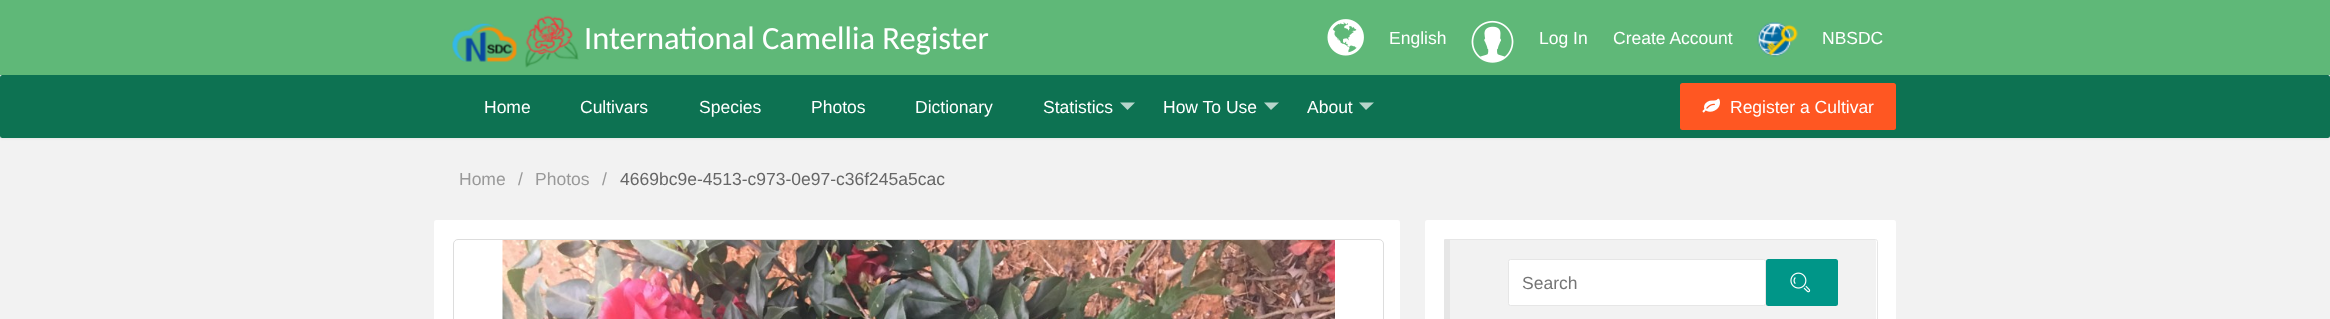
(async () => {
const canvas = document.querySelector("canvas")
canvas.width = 2330
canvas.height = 319
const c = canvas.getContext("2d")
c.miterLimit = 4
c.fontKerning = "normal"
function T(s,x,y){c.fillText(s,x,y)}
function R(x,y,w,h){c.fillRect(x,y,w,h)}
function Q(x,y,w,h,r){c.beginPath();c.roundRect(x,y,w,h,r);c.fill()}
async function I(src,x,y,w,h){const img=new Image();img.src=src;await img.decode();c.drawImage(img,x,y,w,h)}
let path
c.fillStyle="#f2f2f2"
R(0,0,2330,319)
c.fillStyle="#0000000d"
c.filter="blur(1px)"
c.beginPath()
c.roundRect(0,76,2330,63,2.5)
c.fill()
c.filter="none"
c.fillStyle="#5fb878"
R(0,0,2330,75)
await I("1.png",452,23,65,39)
await I("2.png",525,15,54,53)
c.font="32.5px Carlito"
c.fillStyle="#fff"
T("International Camellia Register",584,49)
await I("3.png",1327,19,37,37)
c.font="17.5px Liberation Sans"
T("English",1389,44)
await I("4.png",1471,20,43,43)
T("Log In",1539,44)
T("Create Account",1613,44)
await I("5.png",1757,22,41,35)
T("NBSDC",1822,44)
c.fillStyle="#0d7252"
Q(0,75,2330,63,2.5)
c.fillStyle="#fff"
T("Home",484,113)
T("Cultivars",580,113)
T("Species",699,113)
T("Photos",811,113)
T("Dictionary",915,113)
T("Statistics",1043,113)
c.fillStyle="#b6d5cb"
path = new Path2D("M1120 102.5h15l-7.5 7.5z")
c.fill(path)
c.fillStyle="#fff"
T("How To Use",1163,113)
c.fillStyle="#b6d5cb"
path = new Path2D("M1264 102.5h15l-8 7.5z")
c.fill(path)
c.fillStyle="#fff"
T("About",1307,113)
c.fillStyle="#b6d5cb"
path = new Path2D("M1359 102.5h15l-8 7.5z")
c.fill(path)
c.fillStyle="#ff5722"
Q(1680,83,216,47,2.5)
await I("6.png",1702,98,18,15)
c.fillStyle="#fff"
T("Register a Cultivar",1730,113)
c.fillStyle="#999"
T("Home",459,185)
T("/",518,185)
T("Photos",535,185)
T("/",602,185)
c.fillStyle="#666"
T("4669bc9e-4513-c973-0e97-c36f245a5cac",620,185)
c.fillStyle="#fff"
Q(434,220,966,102,2.5)
c.beginPath()
c.roundRect(453.5,239.5,930,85,4.5)
c.strokeStyle="#ddd"
c.stroke()
await I("7.png",502,240,833,79)
Q(1425,220,471,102,2.5)
c.fillStyle="#f2f2f2"
path = new Path2D("M1450 240h425c.5 0 1 .5 1 1v78c0 .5-.5 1-1 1h-425z")
c.fill(path)
path = new Path2D("M1444.5 239.5h431c1 0 2 1 2 2v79c0 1-1 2-2 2h-431z")
c.strokeStyle="#e6e6e6"
c.stroke(path)
c.fillStyle="#e6e6e6"
R(1445,239,5,80)
c.fillStyle="#fff"
c.beginPath()
c.roundRect(1508.5,259.5,257,46,2)
c.fill()
c.stroke()
c.fillStyle="#757575"
T("Search",1522,289)
c.fillStyle="#009688"
Q(1766,259,72,47,2.5)
await I("8.png",1790,272,21,21)
})()
